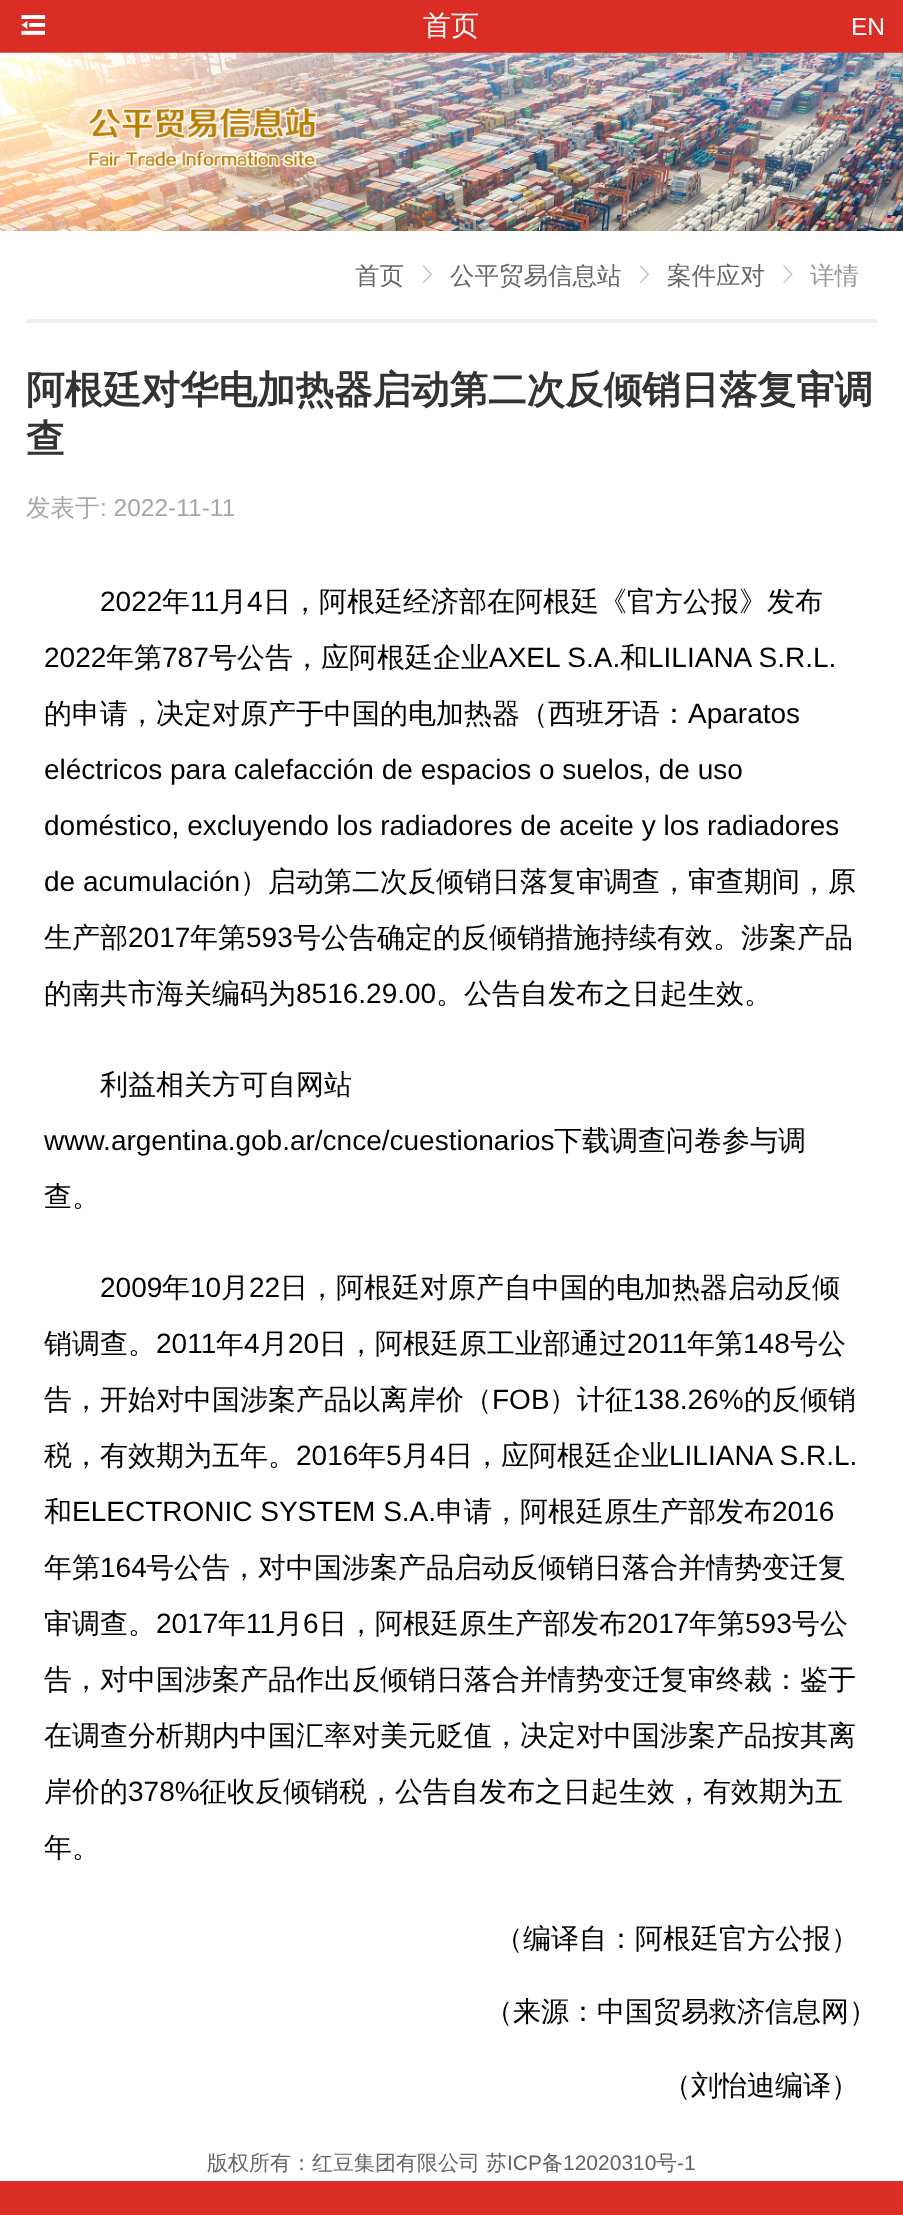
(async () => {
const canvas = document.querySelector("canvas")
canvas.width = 903
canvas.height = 2215
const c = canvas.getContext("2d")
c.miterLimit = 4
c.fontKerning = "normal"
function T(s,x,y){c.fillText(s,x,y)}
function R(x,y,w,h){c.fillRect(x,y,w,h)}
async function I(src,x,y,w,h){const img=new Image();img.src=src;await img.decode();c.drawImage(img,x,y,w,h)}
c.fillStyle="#fff"
R(0,0,903,2215)
c.fillStyle="#d92d25"
R(0,0,903,53)
await I("1.png",21,15,25,20)
c.font="500 28px WenQuanYi Zen Hei"
c.fillStyle="#fff"
T("首页",423,35)
c.font="24.5px Liberation Sans"
T("EN",851,35)
await I("2.png",0,52,903,179)
c.fillStyle="#eee"
R(26,319,851,4)
c.font="500 24.5px WenQuanYi Zen Hei"
c.fillStyle="#666"
T("首页",355,284)
await I("3.png",422,265,10,19)
T("公平贸易信息站",450,284)
await I("3.png",639,265,10,19)
T("案件应对",667,284)
await I("4.png",783,265,10,18)
c.fillStyle="#999"
T("详情",810,284)
c.font="bold 38.5px WenQuanYi Zen Hei"
c.fillStyle="#333"
T("阿根廷对华电加热器启动第二次反倾销日落复审调",26,403)
T("查",26,452)
c.font="500 24.5px WenQuanYi Zen Hei"
c.fillStyle="#a7a7a7"
T("发表于",26,516)
c.font="24.5px Liberation Sans"
T(": 2022-11-11",100,516)
c.font="28px Liberation Sans"
c.fillStyle="#000"
T("2022",100,611)
c.font="500 28px WenQuanYi Zen Hei"
T("年",162,611)
c.font="28px Liberation Sans"
T("11",190,611)
c.font="500 28px WenQuanYi Zen Hei"
T("月",219,611)
c.font="28px Liberation Sans"
T("4",247,611)
c.font="500 28px WenQuanYi Zen Hei"
T("日，阿根廷经济部在阿根廷《官方公报》发布",263,611)
c.font="28px Liberation Sans"
T("2022",44,667)
c.font="500 28px WenQuanYi Zen Hei"
T("年第",106,667)
c.font="28px Liberation Sans"
T("787",162,667)
c.font="500 28px WenQuanYi Zen Hei"
T("号公告，应阿根廷企业",209,667)
c.font="28px Liberation Sans"
T("AXEL S.A.",489,667)
c.font="500 28px WenQuanYi Zen Hei"
T("和",620,667)
c.font="28px Liberation Sans"
T("LILIANA S.R.L.",648,667)
c.font="500 28px WenQuanYi Zen Hei"
T("的申请，决定对原产于中国的电加热器（西班牙语：",44,723)
c.font="28px Liberation Sans"
T("Aparatos",688,723)
T("eléctricos para calefacción de espacios o suelos, de uso",44,779)
T("doméstico, excluyendo los radiadores de aceite y los radiadores",44,835)
T("de acumulación",44,891)
c.font="500 28px WenQuanYi Zen Hei"
T("）启动第二次反倾销日落复审调查，审查期间，原",240,891)
T("生产部",44,947)
c.font="28px Liberation Sans"
T("2017",128,947)
c.font="500 28px WenQuanYi Zen Hei"
T("年第",190,947)
c.font="28px Liberation Sans"
T("593",246,947)
c.font="500 28px WenQuanYi Zen Hei"
T("号公告确定的反倾销措施持续有效。涉案产品",293,947)
T("的南共市海关编码为",44,1003)
c.font="28px Liberation Sans"
T("8516.29.00",296,1003)
c.font="500 28px WenQuanYi Zen Hei"
T("。公告自发布之日起生效。",436,1003)
T("利益相关方可自网站",100,1094)
c.font="28px Liberation Sans"
T("www.argentina.gob.ar/cnce/cuestionarios",44,1150)
c.font="500 28px WenQuanYi Zen Hei"
T("下载调查问卷参与调",554,1150)
T("查。",44,1206)
c.font="28px Liberation Sans"
T("2009",100,1297)
c.font="500 28px WenQuanYi Zen Hei"
T("年",162,1297)
c.font="28px Liberation Sans"
T("10",190,1297)
c.font="500 28px WenQuanYi Zen Hei"
T("月",221,1297)
c.font="28px Liberation Sans"
T("22",249,1297)
c.font="500 28px WenQuanYi Zen Hei"
T("日，阿根廷对原产自中国的电加热器启动反倾",280,1297)
T("销调查。",44,1353)
c.font="28px Liberation Sans"
T("2011",156,1353)
c.font="500 28px WenQuanYi Zen Hei"
T("年",216,1353)
c.font="28px Liberation Sans"
T("4",244,1353)
c.font="500 28px WenQuanYi Zen Hei"
T("月",260,1353)
c.font="28px Liberation Sans"
T("20",288,1353)
c.font="500 28px WenQuanYi Zen Hei"
T("日，阿根廷原工业部通过",319,1353)
c.font="28px Liberation Sans"
T("2011",627,1353)
c.font="500 28px WenQuanYi Zen Hei"
T("年第",687,1353)
c.font="28px Liberation Sans"
T("148",743,1353)
c.font="500 28px WenQuanYi Zen Hei"
T("号公",790,1353)
T("告，开始对中国涉案产品以离岸价（",44,1409)
c.font="28px Liberation Sans"
T("FOB",492,1409)
c.font="500 28px WenQuanYi Zen Hei"
T("）计征",549,1409)
c.font="28px Liberation Sans"
T("138.26%",633,1409)
c.font="500 28px WenQuanYi Zen Hei"
T("的反倾销",744,1409)
T("税，有效期为五年。",44,1465)
c.font="28px Liberation Sans"
T("2016",296,1465)
c.font="500 28px WenQuanYi Zen Hei"
T("年",358,1465)
c.font="28px Liberation Sans"
T("5",386,1465)
c.font="500 28px WenQuanYi Zen Hei"
T("月",402,1465)
c.font="28px Liberation Sans"
T("4",430,1465)
c.font="500 28px WenQuanYi Zen Hei"
T("日，应阿根廷企业",445,1465)
c.font="28px Liberation Sans"
T("LILIANA S.R.L.",669,1465)
c.font="500 28px WenQuanYi Zen Hei"
T("和",44,1521)
c.font="28px Liberation Sans"
T("ELECTRONIC SYSTEM S.A.",72,1521)
c.font="500 28px WenQuanYi Zen Hei"
T("申请，阿根廷原生产部发布",436,1521)
c.font="28px Liberation Sans"
T("2016",772,1521)
c.font="500 28px WenQuanYi Zen Hei"
T("年第",44,1577)
c.font="28px Liberation Sans"
T("164",100,1577)
c.font="500 28px WenQuanYi Zen Hei"
T("号公告，对中国涉案产品启动反倾销日落合并情势变迁复",146,1577)
T("审调查。",44,1633)
c.font="28px Liberation Sans"
T("2017",156,1633)
c.font="500 28px WenQuanYi Zen Hei"
T("年",218,1633)
c.font="28px Liberation Sans"
T("11",246,1633)
c.font="500 28px WenQuanYi Zen Hei"
T("月",275,1633)
c.font="28px Liberation Sans"
T("6",303,1633)
c.font="500 28px WenQuanYi Zen Hei"
T("日，阿根廷原生产部发布",319,1633)
c.font="28px Liberation Sans"
T("2017",627,1633)
c.font="500 28px WenQuanYi Zen Hei"
T("年第",689,1633)
c.font="28px Liberation Sans"
T("593",745,1633)
c.font="500 28px WenQuanYi Zen Hei"
T("号公",792,1633)
T("告，对中国涉案产品作出反倾销日落合并情势变迁复审终裁：鉴于",44,1689)
T("在调查分析期内中国汇率对美元贬值，决定对中国涉案产品按其离",44,1745)
T("岸价的",44,1801)
c.font="28px Liberation Sans"
T("378%",128,1801)
c.font="500 28px WenQuanYi Zen Hei"
T("征收反倾销税，公告自发布之日起生效，有效期为五",199,1801)
T("年。",44,1857)
T("（编译自：阿根廷官方公报）",495,1948)
T("（来源：中国贸易救济信息网）",485,2021)
T("（刘怡迪编译）",663,2095)
c.font="500 21px WenQuanYi Zen Hei"
c.fillStyle="#666"
T("版权所有：红豆集团有限公司",207,2170)
c.fillStyle="#606266"
T("苏",486,2170)
c.font="21px Liberation Sans"
T("ICP",507,2170)
c.font="500 21px WenQuanYi Zen Hei"
T("备",542,2170)
c.font="21px Liberation Sans"
T("12020310",563,2170)
c.font="500 21px WenQuanYi Zen Hei"
T("号",656,2170)
c.font="21px Liberation Sans"
T("-1",677,2170)
c.fillStyle="#d92d25"
R(0,2181,903,34)
})()
